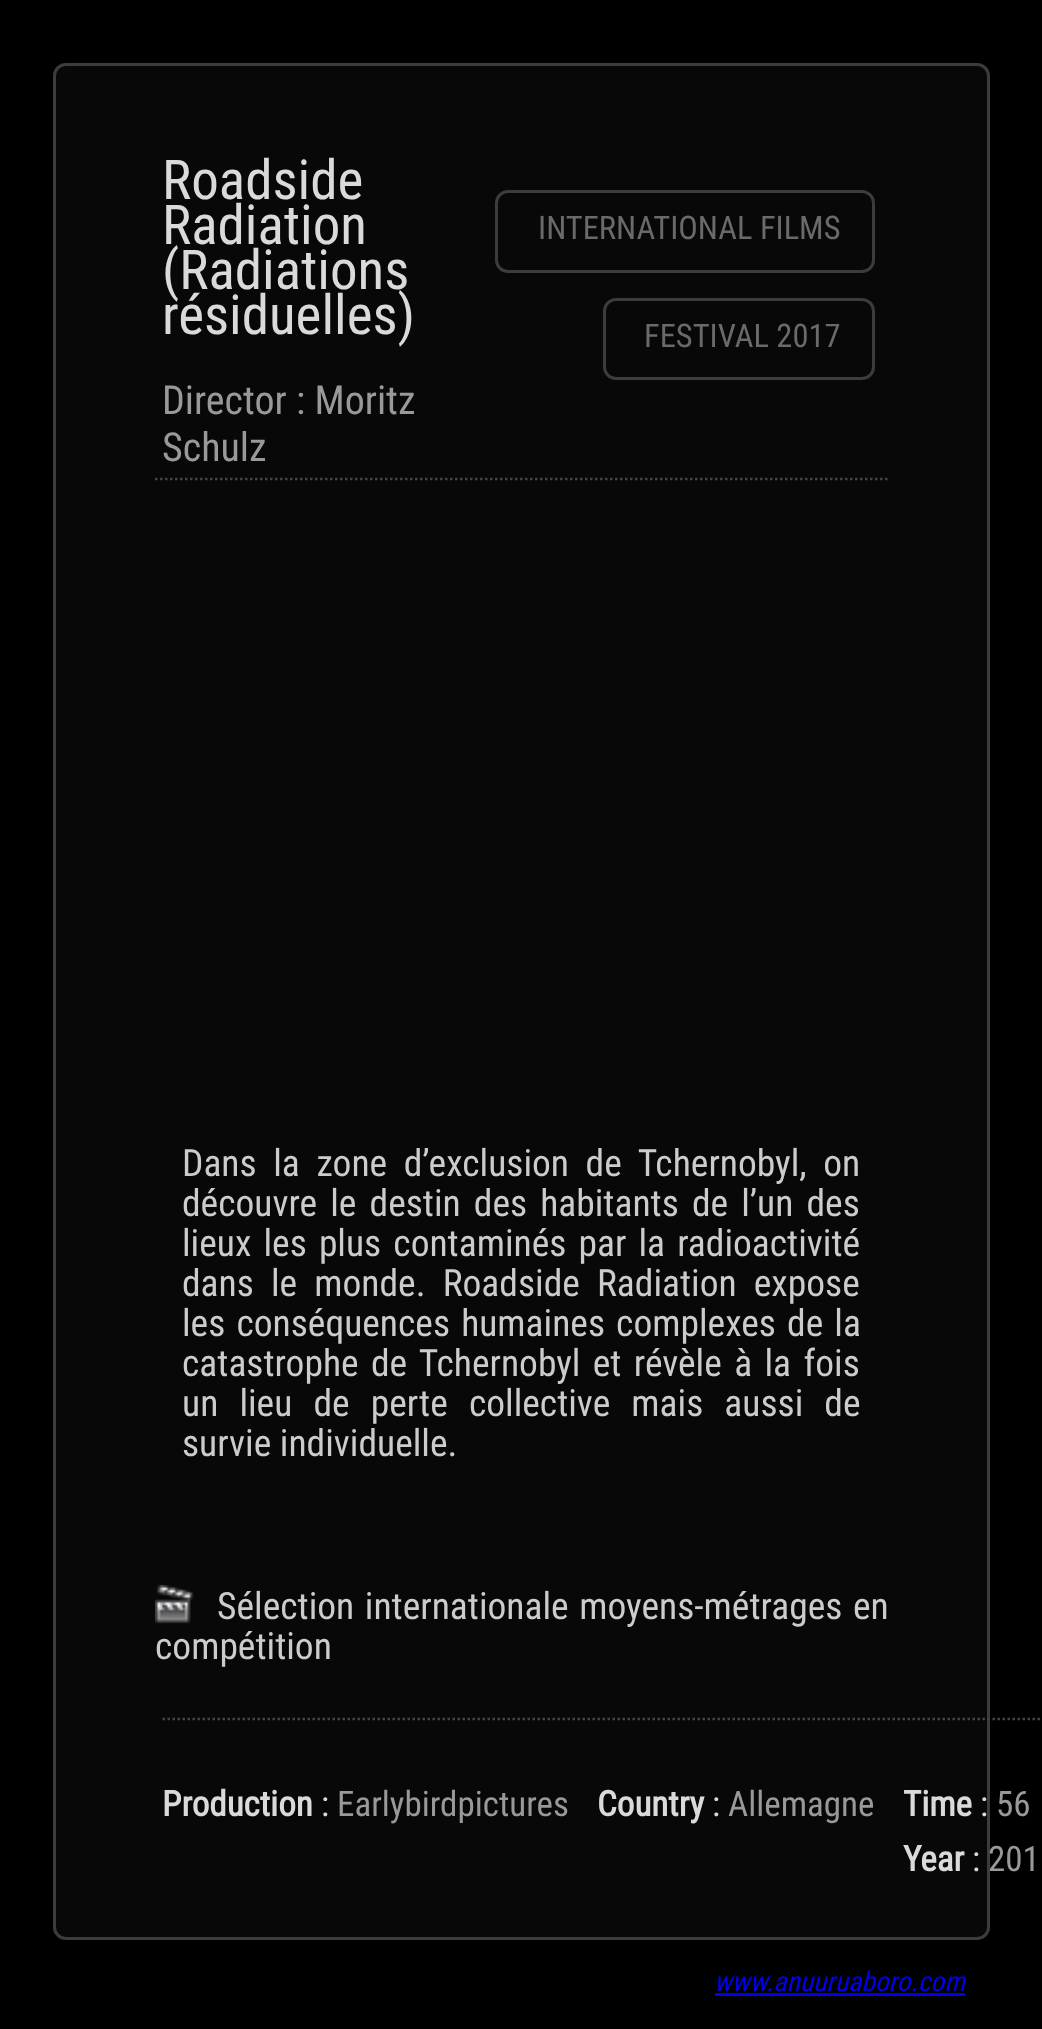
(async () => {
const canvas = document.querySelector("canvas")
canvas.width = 1042
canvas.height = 2029
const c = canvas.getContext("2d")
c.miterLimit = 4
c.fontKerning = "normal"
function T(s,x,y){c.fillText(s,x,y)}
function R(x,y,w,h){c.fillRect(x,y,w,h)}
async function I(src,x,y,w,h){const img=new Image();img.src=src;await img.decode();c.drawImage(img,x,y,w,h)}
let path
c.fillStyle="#000"
R(0,0,1042,2029)
await I("1.png",53,63,937,1877)
c.beginPath()
c.roundRect(54.5,64.5,934,1874,11.5)
c.strokeStyle="#3c3c3c"
c.lineWidth=3
c.stroke()
c.font="55px Roboto Condensed"
c.fillStyle="#dadada"
T("Roadside",162,199)
T("Radiation",162,244)
T("(Radiations",162,289)
T("résiduelles)",162,334)
c.font="40px Roboto Condensed"
c.fillStyle="#999"
T("Director : Moritz",162,414)
T("Schulz",162,461)
c.beginPath()
c.roundRect(496.5,191.5,377,80,11.5)
c.stroke()
c.font="32.5px Roboto Condensed"
c.fillStyle="#6a6a6a"
T("INTERNATIONAL FILMS",538,239)
c.beginPath()
c.roundRect(604.5,299.5,269,79,11.5)
c.stroke()
T("FESTIVAL 2017",644,347)
path = new Path2D("M155 479h732.5")
c.strokeStyle="#444"
c.lineWidth=2.5
c.setLineDash([2.5,2.5])
c.stroke(path)
c.wordSpacing="8px"
c.font="37.5px Roboto Condensed"
c.fillStyle="#ccc"
T("Dans la zone d’exclusion de Tchernobyl, on",182,1176)
c.wordSpacing="4.5px"
T("découvre le destin des habitants de l’un des",182,1216)
c.wordSpacing="3.5px"
T("lieux les plus contaminés par la radioactivité",182,1256)
c.wordSpacing="8.5px"
T("dans le monde. Roadside Radiation expose",182,1296)
c.wordSpacing="2.5px"
T("les conséquences humaines complexes de la",182,1336)
c.wordSpacing="3.75px"
T("catastrophe de Tchernobyl et révèle à la fois",182,1376)
c.wordSpacing="12.5px"
T("un lieu de perte collective mais aussi de",182,1416)
c.wordSpacing="0px"
T("survie individuelle.",182,1456)
await I("2.png",155,1585,39,39)
c.wordSpacing="2px"
T("Sélection internationale moyens-métrages en",217,1619)
c.wordSpacing="0px"
T("compétition",155,1659)
path = new Path2D("M162.5 1719h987.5")
c.stroke(path)
c.font="bold 35px Roboto Condensed"
c.fillStyle="#dadada"
T("Production",162,1816)
c.font="35px Roboto Condensed"
T(":",321,1816)
c.fillStyle="#999"
T("Earlybirdpictures",337,1816)
c.font="bold 35px Roboto Condensed"
c.fillStyle="#dadada"
T("Country",597,1816)
c.font="35px Roboto Condensed"
T(":",712,1816)
c.fillStyle="#999"
T("Allemagne",728,1816)
c.font="bold 35px Roboto Condensed"
c.fillStyle="#dadada"
T("Time",903,1816)
c.font="35px Roboto Condensed"
T(":",980,1816)
c.fillStyle="#999"
T("56",996,1816)
c.font="bold 35px Roboto Condensed"
c.fillStyle="#dadada"
T("Year",903,1871)
c.font="35px Roboto Condensed"
T(":",972,1871)
c.fillStyle="#999"
T("201",988,1871)
c.font="italic 27.5px Roboto Condensed"
c.fillStyle="#00e"
T("www.anuuruaboro.com",714,1991)
R(715,1993,250,3)
})()
